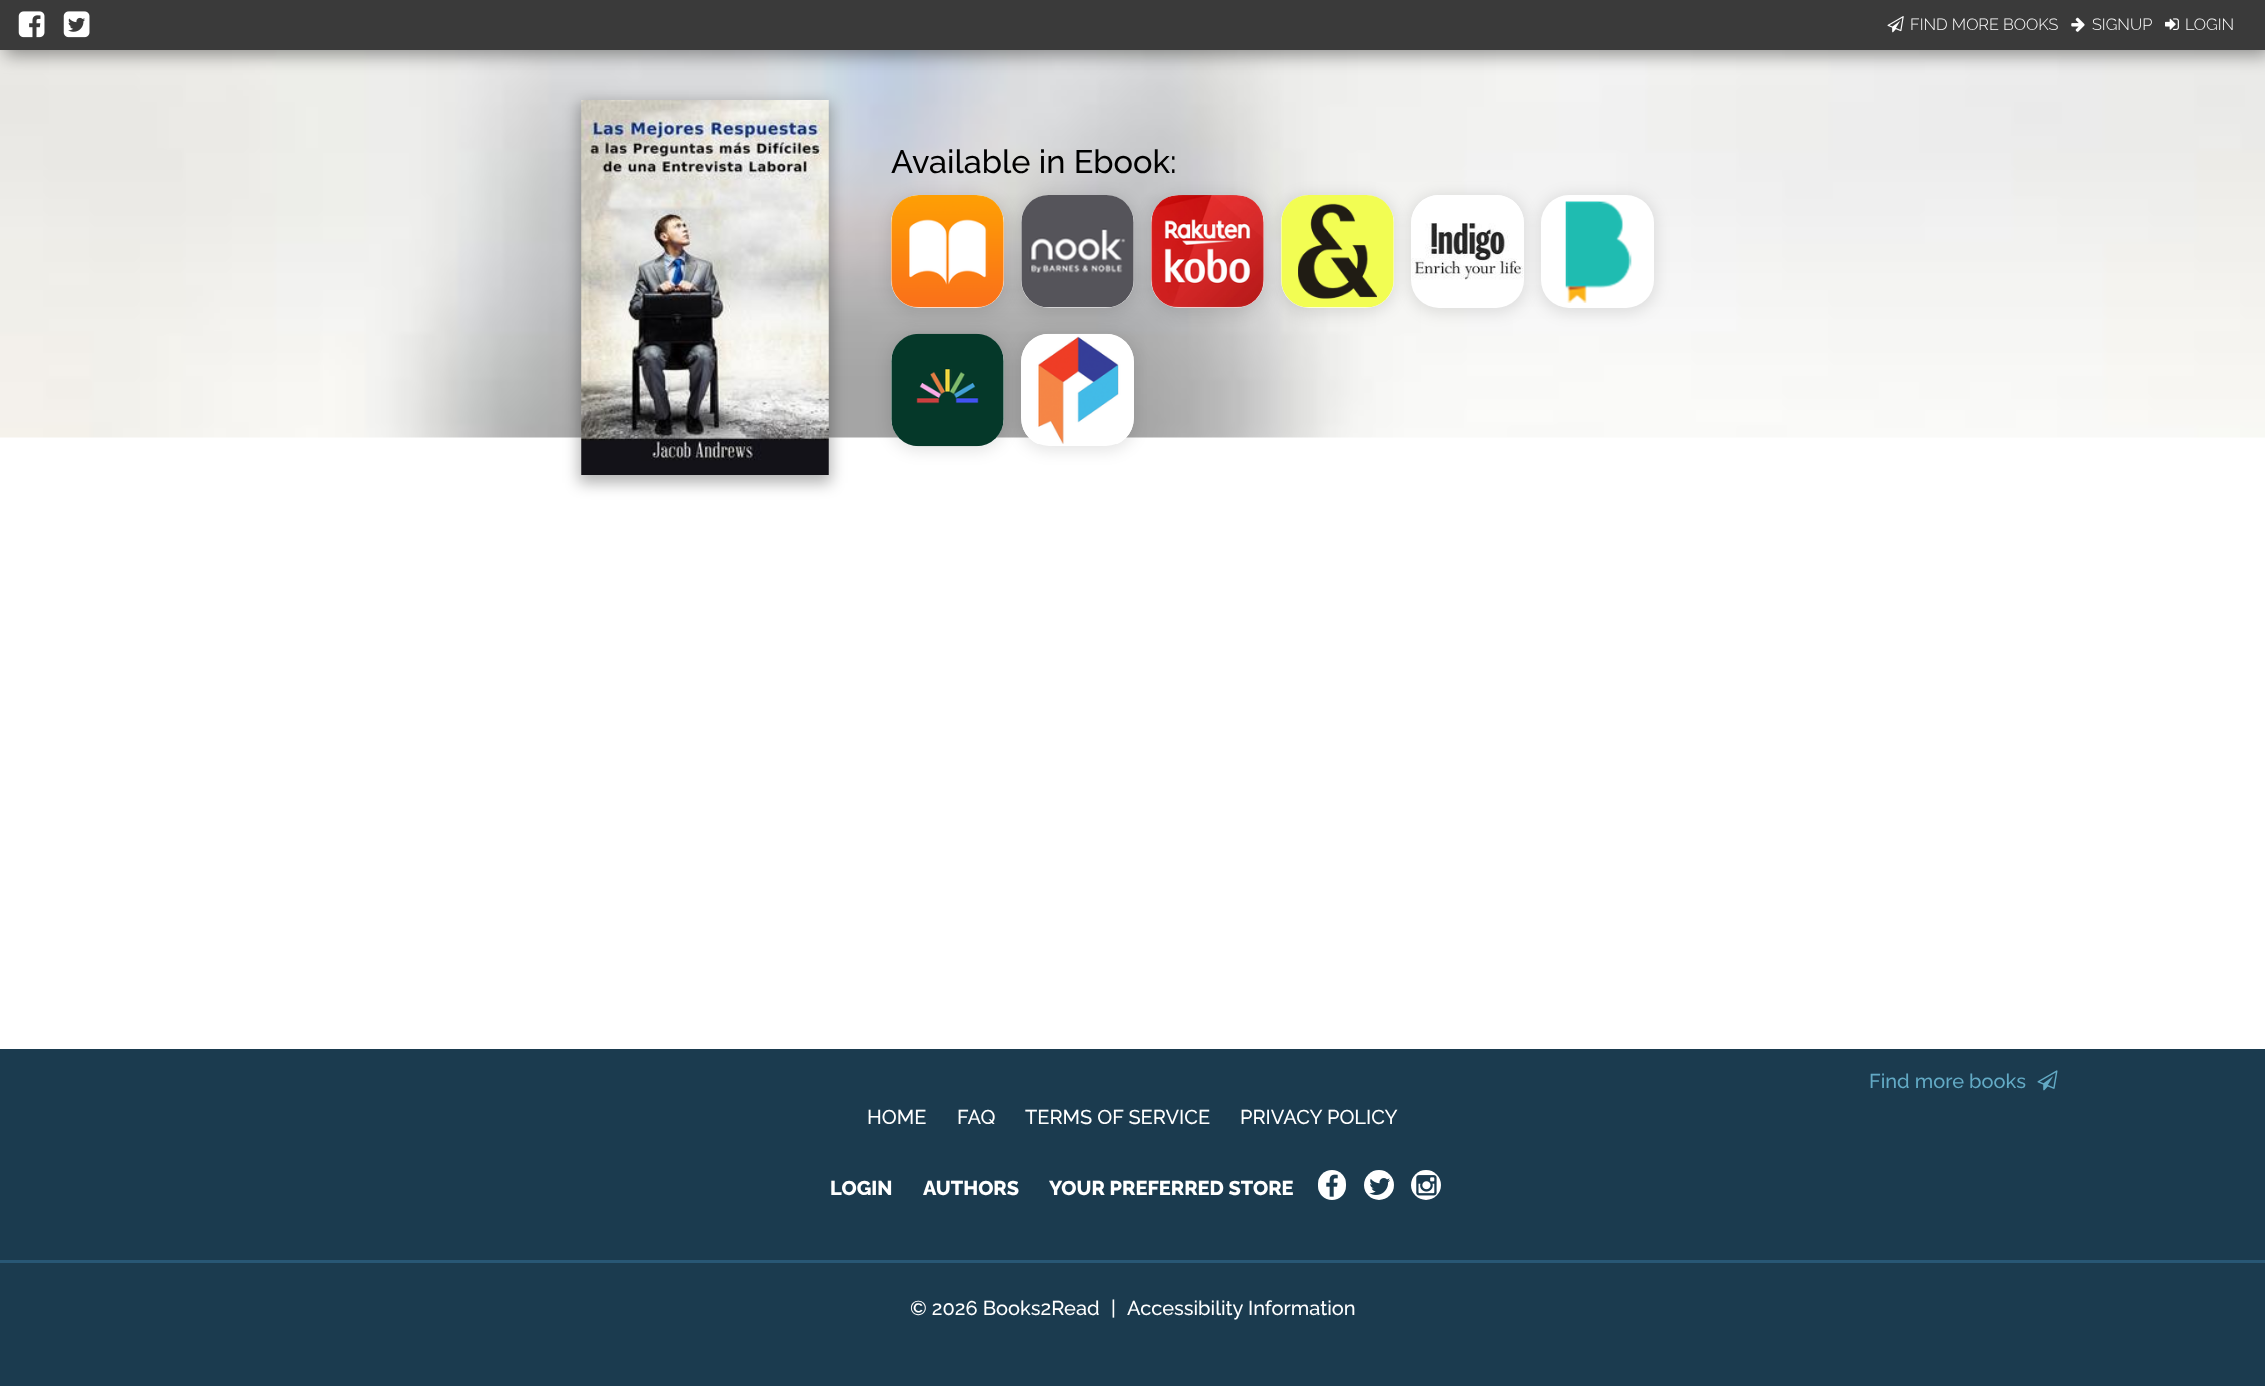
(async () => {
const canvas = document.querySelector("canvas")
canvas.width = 2265
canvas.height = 1386
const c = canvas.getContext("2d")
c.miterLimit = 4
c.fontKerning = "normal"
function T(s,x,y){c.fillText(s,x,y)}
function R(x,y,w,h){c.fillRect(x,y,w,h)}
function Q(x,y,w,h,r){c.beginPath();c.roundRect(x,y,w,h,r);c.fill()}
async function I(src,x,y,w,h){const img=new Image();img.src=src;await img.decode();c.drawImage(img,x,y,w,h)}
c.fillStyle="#fff"
R(0,0,2265,1386)
await I("1.png",0,50,2265,388)
c.fillStyle="#00000066"
c.filter="blur(9px)"
c.beginPath()
c.rect(5,5,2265,50)
c.fill()
c.filter="none"
c.fillStyle="#3a3a3a"
R(0,0,2265,50)
await I("2.png",18,11,27,27)
await I("3.png",63,11,27,27)
await I("4.png",1887,16,17,17)
c.font="300 16.25px Raleway"
c.fillStyle="#fff"
T("FIND MORE BOOKS",1910,30)
await I("5.png",2071,17,14,15)
T("SIGNUP",2092,30)
await I("6.png",2165,18,14,12)
T("LOGIN",2185,30)
c.fillStyle="#0000004d"
c.filter="blur(7.5px)"
c.beginPath()
c.rect(579,103,252,380)
c.fill()
c.filter="none"
await I("7.png",581,100,248,375)
c.fillStyle="#0000001a"
c.filter="blur(7.5px)"
c.beginPath()
c.roundRect(889,195,117,118,30)
c.fill()
c.filter="none"
c.fillStyle="#fff"
Q(891,195,113,113,28)
await I("8.png",891,195,113,113)
c.fillStyle="#0000001a"
c.filter="blur(7.5px)"
c.beginPath()
c.roundRect(1019,195,117,118,30)
c.fill()
c.filter="none"
c.fillStyle="#fff"
Q(1021,195,113,113,28)
await I("9.png",1021,195,113,113)
c.fillStyle="#0000001a"
c.filter="blur(7.5px)"
c.beginPath()
c.roundRect(1149,195,117,118,30)
c.fill()
c.filter="none"
c.font="500 32.5px Raleway"
c.fillStyle="#000"
T("Available in Ebook:",891,173)
c.fillStyle="#fff"
Q(1151,195,113,113,28)
await I("10.png",1151,195,113,113)
c.fillStyle="#0000001a"
c.filter="blur(7.5px)"
c.beginPath()
c.roundRect(1279,195,117,118,30)
c.fill()
c.filter="none"
c.fillStyle="#fff"
Q(1281,195,113,113,28)
await I("11.png",1281,195,113,113)
c.fillStyle="#0000001a"
c.filter="blur(7.5px)"
c.beginPath()
c.roundRect(1409,195,117,118,30)
c.fill()
c.filter="none"
c.fillStyle="#fff"
Q(1411,195,113,113,28)
await I("12.png",1411,195,113,85)
c.fillStyle="#0000001a"
c.filter="blur(7.5px)"
c.beginPath()
c.roundRect(1539,195,117,118,30)
c.fill()
c.filter="none"
c.fillStyle="#fff"
Q(1541,195,113,113,28)
await I("13.png",1565,201,67,102)
c.fillStyle="#0000001a"
c.filter="blur(7.5px)"
c.beginPath()
c.roundRect(889,334,117,117,30)
c.fill()
c.filter="none"
c.fillStyle="#fff"
Q(891,334,113,112,28)
await I("14.png",891,333,113,114)
c.fillStyle="#0000001a"
c.filter="blur(7.5px)"
c.beginPath()
c.roundRect(1019,334,117,117,30)
c.fill()
c.filter="none"
c.fillStyle="#fff"
Q(1021,334,113,112,28)
await I("15.png",1021,333,113,111)
c.fillStyle="#1b3b4f"
R(0,1049,2265,337)
c.font="500 20px Raleway"
c.fillStyle="#63aac5"
T("Find more books",1869,1088)
await I("16.png",2037,1070,21,21)
c.fillStyle="#fff"
T("HOME",867,1124)
T("FAQ",957,1124)
T("TERMS OF SERVICE",1025,1124)
T("PRIVACY POLICY",1240,1124)
c.font="800 20px Raleway"
T("LOGIN",830,1195)
T("AUTHORS",923,1195)
T("YOUR PREFERRED STORE",1049,1195)
Q(1318,1170,28,30,14)
await I("17.png",1326,1174,12,23)
c.beginPath()
c.arc(1379,1185,15,0,7)
c.fill()
await I("18.png",1369,1178,21,17)
c.beginPath()
c.arc(1426,1185,15,0,7)
c.fill()
await I("19.png",1416,1175,21,21)
c.fillStyle="#285775"
R(0,1260,2265,3)
c.font="500 20px Raleway"
c.fillStyle="#fff"
T("© 2026 Books2Read",910,1315)
T("|",1111,1315)
T("Accessibility Information",1127,1315)
})()
